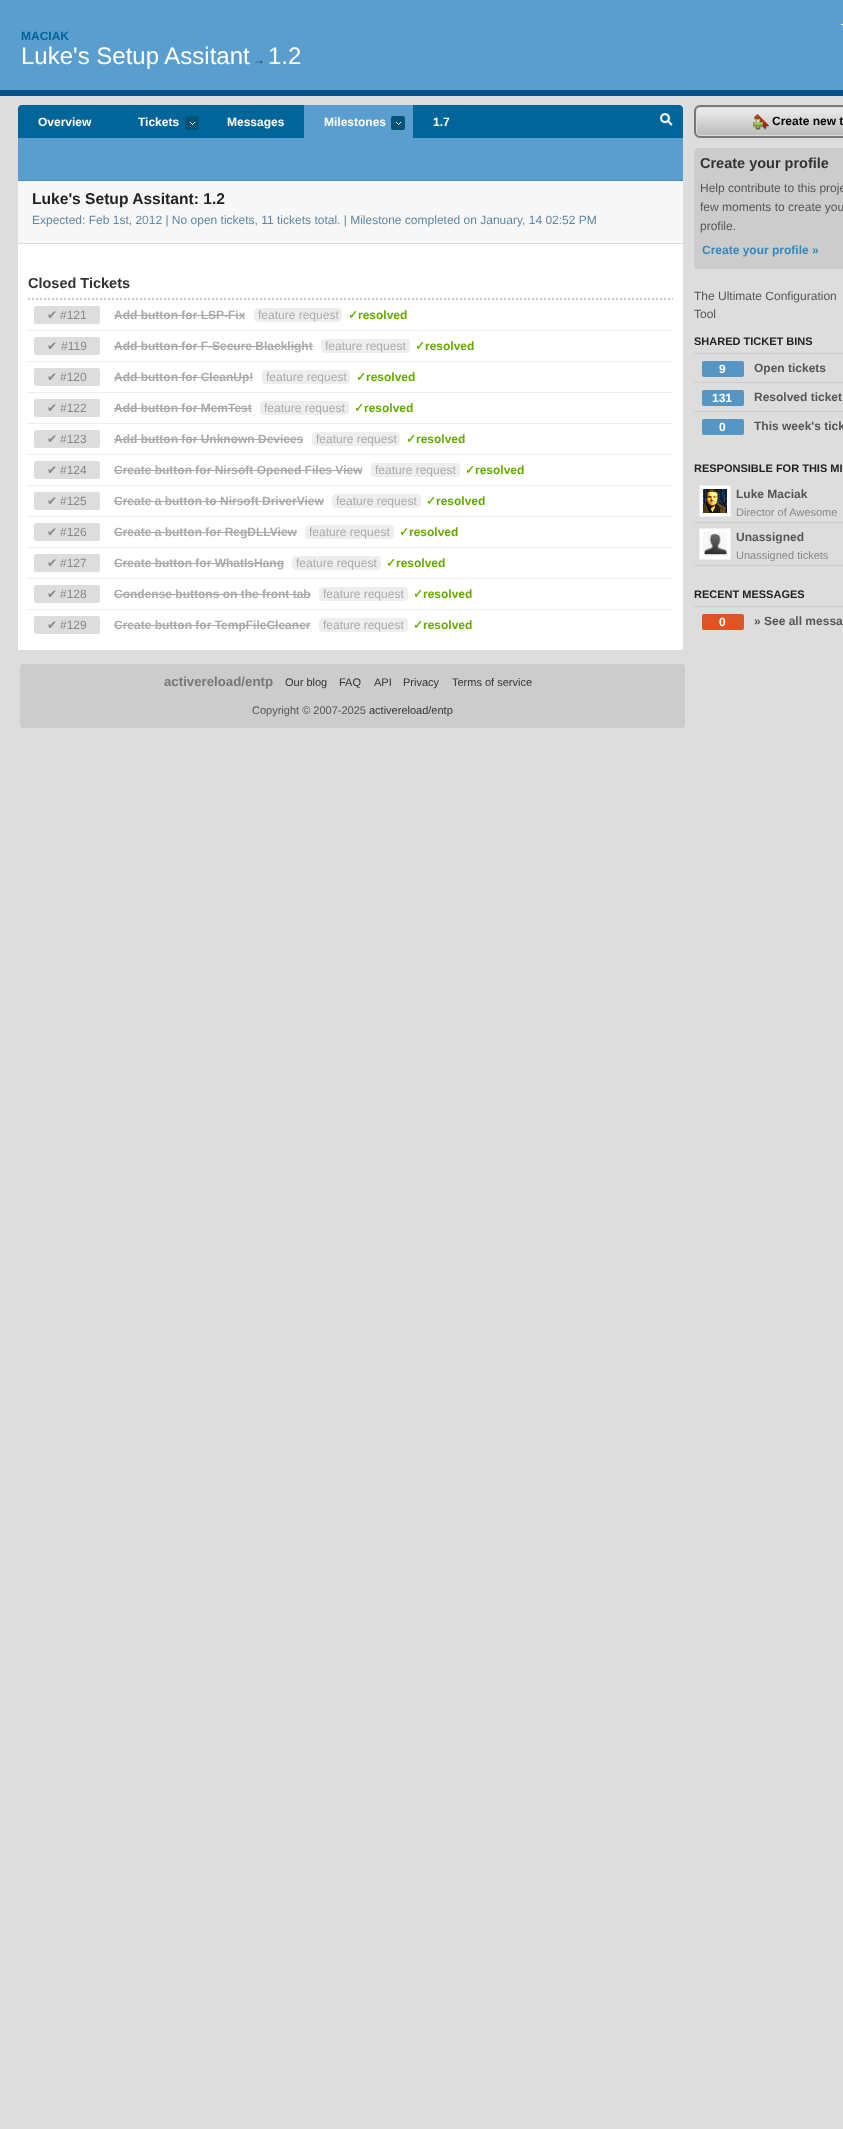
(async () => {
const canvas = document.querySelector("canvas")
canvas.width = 843
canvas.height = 2129
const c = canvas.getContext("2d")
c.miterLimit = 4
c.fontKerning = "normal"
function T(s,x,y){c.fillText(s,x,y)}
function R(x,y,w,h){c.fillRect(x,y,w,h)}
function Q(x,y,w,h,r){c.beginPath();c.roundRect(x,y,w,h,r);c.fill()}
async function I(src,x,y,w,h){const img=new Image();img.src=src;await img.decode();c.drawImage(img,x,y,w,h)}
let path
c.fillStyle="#ddd"
R(0,0,843,2129)
c.fillStyle="#5a9ecf"
R(0,0,843,90)
c.fillStyle="#058"
R(0,90,843,6)
c.fillStyle="#fff"
R(841,24,2,1)
c.font="bold 12px Liberation Sans"
c.fillStyle="#069"
T("MACIAK",21,40)
c.font="24px Liberation Sans"
c.fillStyle="#fff"
T("Luke's Setup Assitant",21,64)
c.font="bold 12px Liberation Sans"
c.fillStyle="#333"
T("→",253,64)
c.font="24px Liberation Sans"
c.fillStyle="#fff"
T("1.2",268,64)
c.beginPath()
c.roundRect(18,105,665,545,[4,4,0,0])
c.fill()
c.fillStyle="#069"
c.beginPath()
c.roundRect(18,105,665,33,[4,4,0,0])
c.fill()
c.font="bold 12px Liberation Sans"
c.fillStyle="#fff"
T("Overview",38,126)
T("Tickets",138,126)
c.fillStyle="#057"
Q(185,116,14,14,2)
await I("1.png",190,122,5,3)
c.fillStyle="#fff"
T("Messages",227,126)
c.fillStyle="#5a9ecf"
R(304,105,109,33)
c.fillStyle="#fff"
T("Milestones",324,126)
c.fillStyle="#057"
Q(391,116,14,14,2)
await I("1.png",396,122,5,3)
c.fillStyle="#fff"
T("1.7",433,126)
await I("2.png",681,105,2,2)
await I("3.png",660,113,13,13)
c.fillStyle="#5a9ecf"
R(18,138,665,42)
c.fillStyle="#468dc0"
R(18,180,665,1)
c.fillStyle="#f7f7f7"
R(18,181,665,62)
c.fillStyle="#ddd"
R(18,243,665,1)
c.font="bold 15.6px Liberation Sans"
c.fillStyle="#222"
T("Luke's Setup Assitant: 1.2",32,204)
c.font="12px Liberation Sans"
c.fillStyle="#5f87a5"
T("Expected: Feb 1st, 2012 | No open tickets, 11 tickets total. | Milestone completed on January, 14 02:52 PM",32,224)
c.font="bold 14.5px Liberation Sans"
c.fillStyle="#333"
T("Closed Tickets",28,288)
path = new Path2D("M28 299h645")
c.strokeStyle="#ccc"
c.lineWidth=2
c.setLineDash([2,2])
c.stroke(path)
c.fillStyle="#ddd"
Q(34,306,66,18,2)
c.font="12px DejaVu Sans"
c.fillStyle="#888"
T("✔",47,319)
c.font="12px Liberation Sans"
T("#121",60,319)
c.font="bold 12px Liberation Sans"
c.fillStyle="#aaa"
T("Add button for LSP-Fix",114,319)
R(114,315,131,1)
c.fillStyle="#eee"
Q(254,308,88,14,4)
c.font="12px Liberation Sans"
c.fillStyle="#aaa"
T("feature request",258,319)
c.font="bold 12px DejaVu Sans"
c.fillStyle="#6a0"
T("✓",348,319)
c.font="bold 12px Liberation Sans"
T("resolved",358,319)
c.fillStyle="#eee"
R(28,330,645,1)
c.fillStyle="#ddd"
Q(34,337,66,18,2)
c.font="12px DejaVu Sans"
c.fillStyle="#888"
T("✔",47,350)
c.font="12px Liberation Sans"
T("#119",61,350)
c.font="bold 12px Liberation Sans"
c.fillStyle="#aaa"
T("Add button for F-Secure Blacklight",114,350)
R(114,346,199,1)
c.fillStyle="#eee"
Q(321,339,89,14,4)
c.font="12px Liberation Sans"
c.fillStyle="#aaa"
T("feature request",325,350)
c.font="bold 12px DejaVu Sans"
c.fillStyle="#6a0"
T("✓",415,350)
c.font="bold 12px Liberation Sans"
T("resolved",425,350)
c.fillStyle="#eee"
R(28,361,645,1)
c.fillStyle="#ddd"
Q(34,368,66,18,2)
c.font="12px DejaVu Sans"
c.fillStyle="#888"
T("✔",47,381)
c.font="12px Liberation Sans"
T("#120",60,381)
c.font="bold 12px Liberation Sans"
c.fillStyle="#aaa"
T("Add button for CleanUp!",114,381)
R(114,377,139,1)
c.fillStyle="#eee"
Q(262,370,88,14,4)
c.font="12px Liberation Sans"
c.fillStyle="#aaa"
T("feature request",266,381)
c.font="bold 12px DejaVu Sans"
c.fillStyle="#6a0"
T("✓",356,381)
c.font="bold 12px Liberation Sans"
T("resolved",366,381)
c.fillStyle="#eee"
R(28,392,645,1)
c.fillStyle="#ddd"
Q(34,399,66,18,2)
c.font="12px DejaVu Sans"
c.fillStyle="#888"
T("✔",47,412)
c.font="12px Liberation Sans"
T("#122",60,412)
c.font="bold 12px Liberation Sans"
c.fillStyle="#aaa"
T("Add button for MemTest",114,412)
R(114,408,138,1)
c.fillStyle="#eee"
Q(260,401,89,14,4)
c.font="12px Liberation Sans"
c.fillStyle="#aaa"
T("feature request",264,412)
c.font="bold 12px DejaVu Sans"
c.fillStyle="#6a0"
T("✓",354,412)
c.font="bold 12px Liberation Sans"
T("resolved",364,412)
c.fillStyle="#eee"
R(28,423,645,1)
c.fillStyle="#ddd"
Q(34,430,66,18,2)
c.font="12px DejaVu Sans"
c.fillStyle="#888"
T("✔",47,443)
c.font="12px Liberation Sans"
T("#123",60,443)
c.font="bold 12px Liberation Sans"
c.fillStyle="#aaa"
T("Add button for Unknown Devices",114,443)
R(114,439,189,1)
c.fillStyle="#eee"
Q(312,432,88,14,4)
c.font="12px Liberation Sans"
c.fillStyle="#aaa"
T("feature request",316,443)
c.font="bold 12px DejaVu Sans"
c.fillStyle="#6a0"
T("✓",406,443)
c.font="bold 12px Liberation Sans"
T("resolved",416,443)
c.fillStyle="#eee"
R(28,454,645,1)
c.fillStyle="#ddd"
Q(34,461,66,18,2)
c.font="12px DejaVu Sans"
c.fillStyle="#888"
T("✔",47,474)
c.font="12px Liberation Sans"
T("#124",60,474)
c.font="bold 12px Liberation Sans"
c.fillStyle="#aaa"
T("Create button for Nirsoft Opened Files View",114,474)
R(114,470,248,1)
c.fillStyle="#eee"
Q(371,463,89,14,4)
c.font="12px Liberation Sans"
c.fillStyle="#aaa"
T("feature request",375,474)
c.font="bold 12px DejaVu Sans"
c.fillStyle="#6a0"
T("✓",465,474)
c.font="bold 12px Liberation Sans"
T("resolved",475,474)
c.fillStyle="#eee"
R(28,485,645,1)
c.fillStyle="#ddd"
Q(34,492,66,18,2)
c.font="12px DejaVu Sans"
c.fillStyle="#888"
T("✔",47,505)
c.font="12px Liberation Sans"
T("#125",60,505)
c.font="bold 12px Liberation Sans"
c.fillStyle="#aaa"
T("Create a button to Nirsoft DriverView",114,505)
R(114,501,210,1)
c.fillStyle="#eee"
Q(332,494,89,14,4)
c.font="12px Liberation Sans"
c.fillStyle="#aaa"
T("feature request",336,505)
c.font="bold 12px DejaVu Sans"
c.fillStyle="#6a0"
T("✓",426,505)
c.font="bold 12px Liberation Sans"
T("resolved",436,505)
c.fillStyle="#eee"
R(28,516,645,1)
c.fillStyle="#ddd"
Q(34,523,66,18,2)
c.font="12px DejaVu Sans"
c.fillStyle="#888"
T("✔",47,536)
c.font="12px Liberation Sans"
T("#126",60,536)
c.font="bold 12px Liberation Sans"
c.fillStyle="#aaa"
T("Create a button for RegDLLView",114,536)
R(114,532,183,1)
c.fillStyle="#eee"
Q(305,525,89,14,4)
c.font="12px Liberation Sans"
c.fillStyle="#aaa"
T("feature request",309,536)
c.font="bold 12px DejaVu Sans"
c.fillStyle="#6a0"
T("✓",399,536)
c.font="bold 12px Liberation Sans"
T("resolved",409,536)
c.fillStyle="#eee"
R(28,547,645,1)
c.fillStyle="#ddd"
Q(34,554,66,18,2)
c.font="12px DejaVu Sans"
c.fillStyle="#888"
T("✔",47,567)
c.font="12px Liberation Sans"
T("#127",60,567)
c.font="bold 12px Liberation Sans"
c.fillStyle="#aaa"
T("Create button for WhatIsHang",114,567)
R(114,563,170,1)
c.fillStyle="#eee"
Q(292,556,89,14,4)
c.font="12px Liberation Sans"
c.fillStyle="#aaa"
T("feature request",296,567)
c.font="bold 12px DejaVu Sans"
c.fillStyle="#6a0"
T("✓",386,567)
c.font="bold 12px Liberation Sans"
T("resolved",396,567)
c.fillStyle="#eee"
R(28,578,645,1)
c.fillStyle="#ddd"
Q(34,585,66,18,2)
c.font="12px DejaVu Sans"
c.fillStyle="#888"
T("✔",47,598)
c.font="12px Liberation Sans"
T("#128",60,598)
c.font="bold 12px Liberation Sans"
c.fillStyle="#aaa"
T("Condense buttons on the front tab",114,598)
R(114,594,197,1)
c.fillStyle="#eee"
Q(319,587,89,14,4)
c.font="12px Liberation Sans"
c.fillStyle="#aaa"
T("feature request",323,598)
c.font="bold 12px DejaVu Sans"
c.fillStyle="#6a0"
T("✓",413,598)
c.font="bold 12px Liberation Sans"
T("resolved",423,598)
c.fillStyle="#eee"
R(28,609,645,1)
c.fillStyle="#ddd"
Q(34,616,66,18,2)
c.font="12px DejaVu Sans"
c.fillStyle="#888"
T("✔",47,629)
c.font="12px Liberation Sans"
T("#129",60,629)
c.font="bold 12px Liberation Sans"
c.fillStyle="#aaa"
T("Create button for TempFileCleaner",114,629)
R(114,625,196,1)
c.fillStyle="#eee"
Q(319,618,89,14,4)
c.font="12px Liberation Sans"
c.fillStyle="#aaa"
T("feature request",323,629)
c.font="bold 12px DejaVu Sans"
c.fillStyle="#6a0"
T("✓",413,629)
c.font="bold 12px Liberation Sans"
T("resolved",423,629)
await I("4.png",694,105,149,33)
await I("5.png",753,114,16,16)
c.fillStyle="#000"
T("Create new t",772,125)
c.fillStyle="#ccc"
Q(694,148,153,121,4)
c.font="bold 14.5px Liberation Sans"
c.fillStyle="#333"
T("Create your profile",700,168)
c.font="12px Liberation Sans"
c.fillStyle="#555"
T("Help contribute to this proje",700,192)
T("few moments to create you",700,211)
T("profile.",700,230)
c.font="bold 12px Liberation Sans"
c.fillStyle="#38b"
T("Create your profile »",702,254)
c.font="12px Liberation Sans"
c.fillStyle="#555"
T("The Ultimate Configuration",694,300)
T("Tool",694,318)
c.font="bold 11px Liberation Sans"
c.fillStyle="#222"
T("SHARED TICKET BINS",694,345)
c.fillStyle="#ccc"
R(694,353,149,1)
c.fillStyle="#5596c4"
Q(702,361,42,16,2)
c.font="bold 12px Liberation Sans"
c.fillStyle="#fff"
T("9",719,373)
c.fillStyle="#555"
T("Open tickets",754,372)
c.fillStyle="#ccc"
R(694,382,149,1)
c.fillStyle="#5596c4"
Q(702,390,42,16,2)
c.fillStyle="#fff"
T("131",712,402)
c.fillStyle="#555"
T("Resolved ticket",754,401)
c.fillStyle="#ccc"
R(694,411,149,1)
c.fillStyle="#5596c4"
Q(702,419,42,16,2)
c.fillStyle="#fff"
T("0",719,431)
c.fillStyle="#555"
T("This week's tick",754,430)
c.font="bold 11px Liberation Sans"
c.fillStyle="#222"
T("RESPONSIBLE FOR THIS MI",694,472)
c.fillStyle="#ccc"
R(694,522,149,1)
c.fillStyle="#fff"
c.beginPath()
c.rect(699.5,485.5,31,31)
c.fill()
c.strokeStyle="#eee"
c.lineWidth=1
c.setLineDash([])
c.stroke()
await I("6.png",703,489,24,24)
c.font="bold 12px Liberation Sans"
c.fillStyle="#555"
T("Luke Maciak",736,498)
c.font="11px Liberation Sans"
c.fillStyle="#888"
T("Director of Awesome",736,516)
c.fillStyle="#ccc"
R(694,565,149,1)
c.fillStyle="#fff"
c.beginPath()
c.rect(699.5,528.5,31,31)
c.fill()
c.stroke()
await I("7.png",703,532,24,24)
c.font="bold 12px Liberation Sans"
c.fillStyle="#555"
T("Unassigned",736,541)
c.font="11px Liberation Sans"
c.fillStyle="#888"
T("Unassigned tickets",736,559)
c.font="bold 11px Liberation Sans"
c.fillStyle="#222"
T("RECENT MESSAGES",694,598)
c.fillStyle="#ccc"
R(694,606,149,1)
c.fillStyle="#d52"
Q(702,614,42,16,2)
c.font="bold 12px Liberation Sans"
c.fillStyle="#fff"
T("0",719,626)
c.fillStyle="#555"
T("» See all messa",754,625)
c.fillStyle="#ccc"
Q(20,664,665,64,4)
c.font="bold 13.25px Liberation Sans"
c.fillStyle="#777"
T("activereload/entp",164,686)
c.font="11px Liberation Sans"
c.fillStyle="#333"
T("Our blog",285,686)
T("FAQ",339,686)
T("API",374,686)
T("Privacy",403,686)
T("Terms of service",452,686)
c.fillStyle="#555"
T("Copyright © 2007-2025",252,714)
c.fillStyle="#333"
T("activereload/entp",369,714)
})()
